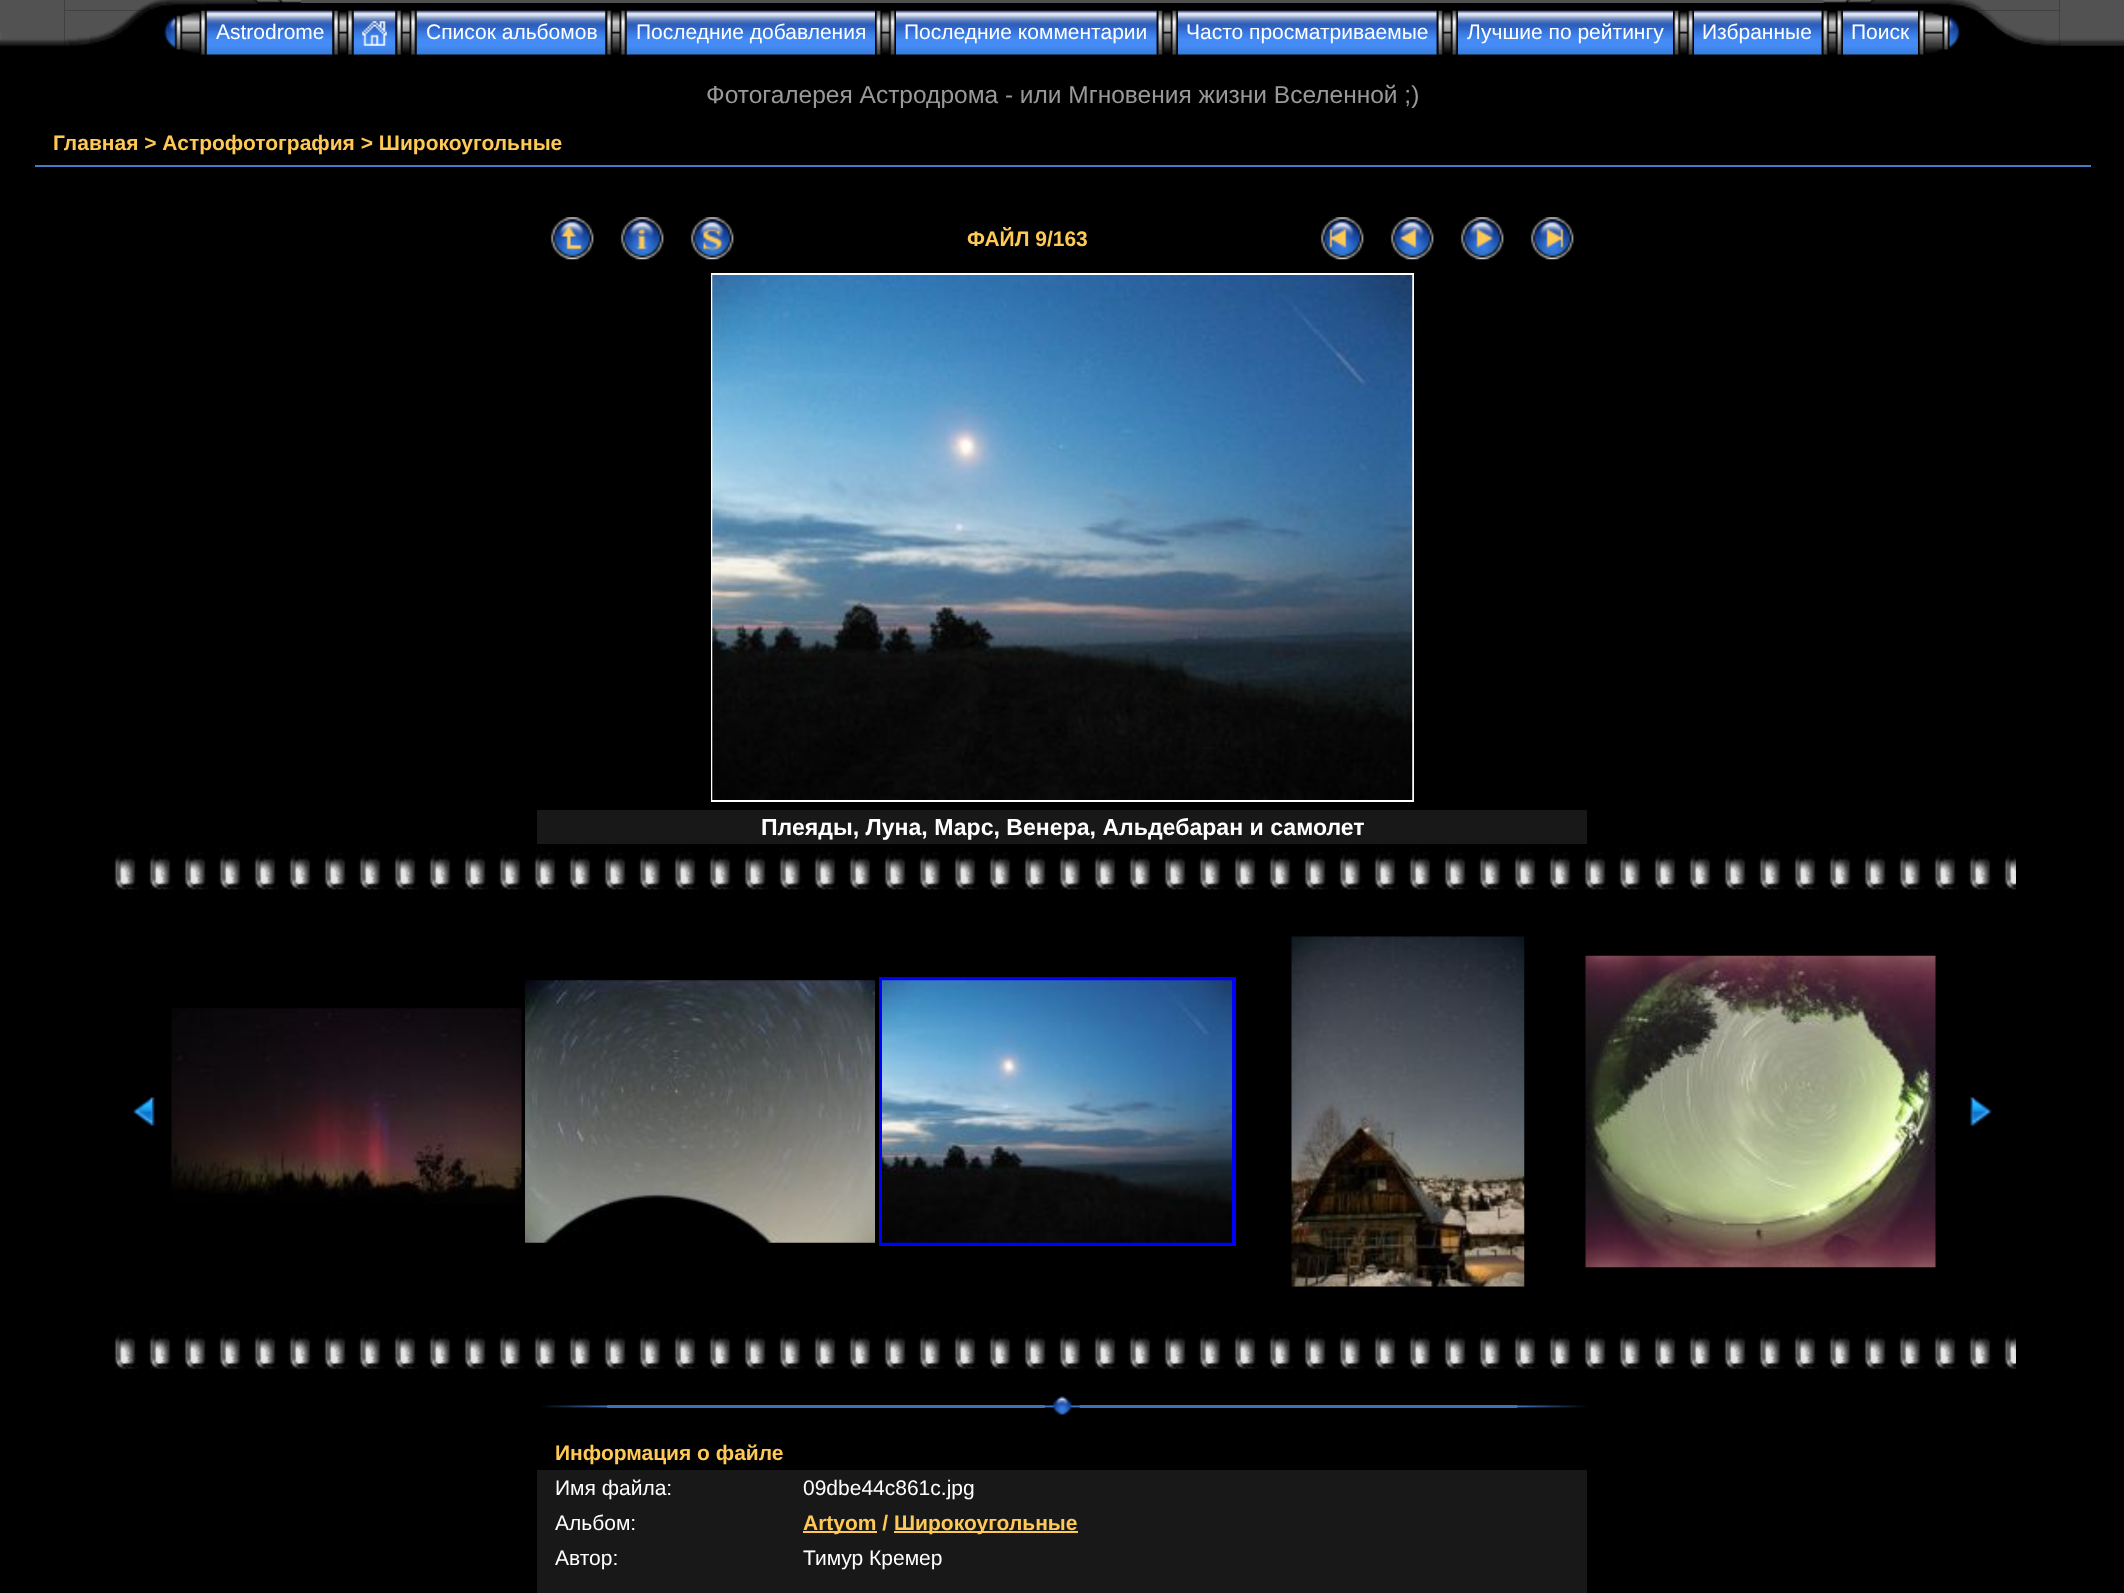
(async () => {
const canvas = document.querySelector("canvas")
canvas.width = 2124
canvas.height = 1593
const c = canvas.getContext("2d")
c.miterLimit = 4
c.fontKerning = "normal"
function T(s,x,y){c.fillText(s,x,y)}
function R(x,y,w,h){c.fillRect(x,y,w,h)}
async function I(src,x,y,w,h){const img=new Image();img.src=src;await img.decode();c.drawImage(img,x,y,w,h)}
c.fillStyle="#000"
R(0,0,2124,1593)
await I("1.png",0,0,65,46)
await I("2.png",64,0,237,11)
c.fillStyle="#505050"
R(301,0,1523,3)
await I("3.png",1823,0,237,11)
await I("4.png",64,10,83,36)
await I("6.png",206,10,127,45)
await I("5.png",164,10,43,45)
c.font="21px Liberation Sans"
c.fillStyle="#fff"
T("Astrodrome",216,39)
await I("8.png",353,10,43,45)
await I("7.png",332,10,22,45)
await I("9.png",362,21,25,25)
await I("11.png",416,10,190,45)
await I("10.png",395,10,22,45)
T("Список альбомов",426,39)
await I("13.png",626,10,249,45)
await I("12.png",605,10,22,45)
T("Последние добавления",636,39)
await I("14.png",876,10,19,45)
await I("15.png",896,10,261,45)
T("Последние комментарии",904,39)
await I("17.png",1177,10,260,45)
await I("16.png",1156,10,22,45)
T("Часто просматриваемые",1186,39)
await I("19.png",1457,10,216,45)
await I("18.png",1436,10,22,45)
T("Лучшие по рейтингу",1467,39)
await I("14.png",1674,10,19,45)
await I("20.png",1694,10,128,45)
T("Избранные",1702,39)
await I("22.png",1842,10,76,45)
await I("21.png",1821,10,22,45)
T("Поиск",1851,39)
await I("23.png",1918,10,45,45)
await I("25.png",2059,0,65,46)
await I("24.png",1975,10,85,36)
c.font="24.5px Liberation Sans"
c.fillStyle="#999"
T("Фотогалерея Астродрома - или Мгновения жизни Вселенной ;)",706,103)
c.fillStyle="#447ac9"
R(35,165,2056,2)
c.font="bold 21px Liberation Sans"
c.fillStyle="#ffc956"
T("Главная > Астрофотография > Широкоугольные",53,150)
await I("26.png",550,217,44,43)
await I("27.png",620,217,44,43)
await I("28.png",690,217,44,43)
T("ФАЙЛ 9/163",967,246)
await I("29.png",1320,217,44,43)
await I("30.png",1390,217,44,43)
await I("31.png",1460,217,44,43)
await I("32.png",1530,217,44,43)
c.strokeStyle="#fff"
c.lineWidth=2
c.strokeRect(712,274,701,527)
await I("33.png",712,275,701,525)
c.fillStyle="#181818"
R(537,810,1050,34)
c.font="bold 23.1px Liberation Sans"
c.fillStyle="#fff"
T("Плеяды, Луна, Марс, Венера, Альдебаран и самолет",761,835)
await I("34.png",114,847,1902,43)
await I("35.png",115,861,15,24)
await I("36.png",132,1097,23,29)
await I("37.png",171,1008,351,196)
await I("38.png",525,980,350,263)
c.strokeStyle="#00f"
c.lineWidth=4
c.strokeRect(881,979,353,265)
await I("39.png",882,980,350,263)
await I("40.png",1291,936,234,351)
await I("41.png",1585,955,351,313)
await I("42.png",1970,1097,22,29)
await I("43.png",114,1327,1902,42)
await I("44.png",115,1340,10,30)
c.fillStyle="#3f71bb"
R(607,1405,911,3)
await I("45.png",541,1405,67,3)
await I("46.png",1044,1396,36,19)
await I("47.png",1517,1405,70,3)
c.font="bold 21px Liberation Sans"
c.fillStyle="#ffc956"
T("Информация о файле",555,1460)
c.fillStyle="#181818"
R(537,1470,1050,35)
c.font="21px Liberation Sans"
c.fillStyle="#fff"
T("Имя файла:",555,1495)
T("09dbe44c861c.jpg",803,1495)
c.fillStyle="#181818"
R(537,1505,1050,35)
c.fillStyle="#fff"
T("Альбом:",555,1530)
c.fillStyle="#ffc956"
R(803,1531,74,2)
c.font="bold 21px Liberation Sans"
T("Artyom /",803,1530)
R(894,1531,184,2)
T("Широкоугольные",894,1530)
c.fillStyle="#181818"
R(537,1540,1050,35)
c.font="21px Liberation Sans"
c.fillStyle="#fff"
T("Автор:",555,1565)
T("Тимур Кремер",803,1565)
c.fillStyle="#181818"
R(537,1575,1050,18)
})()
